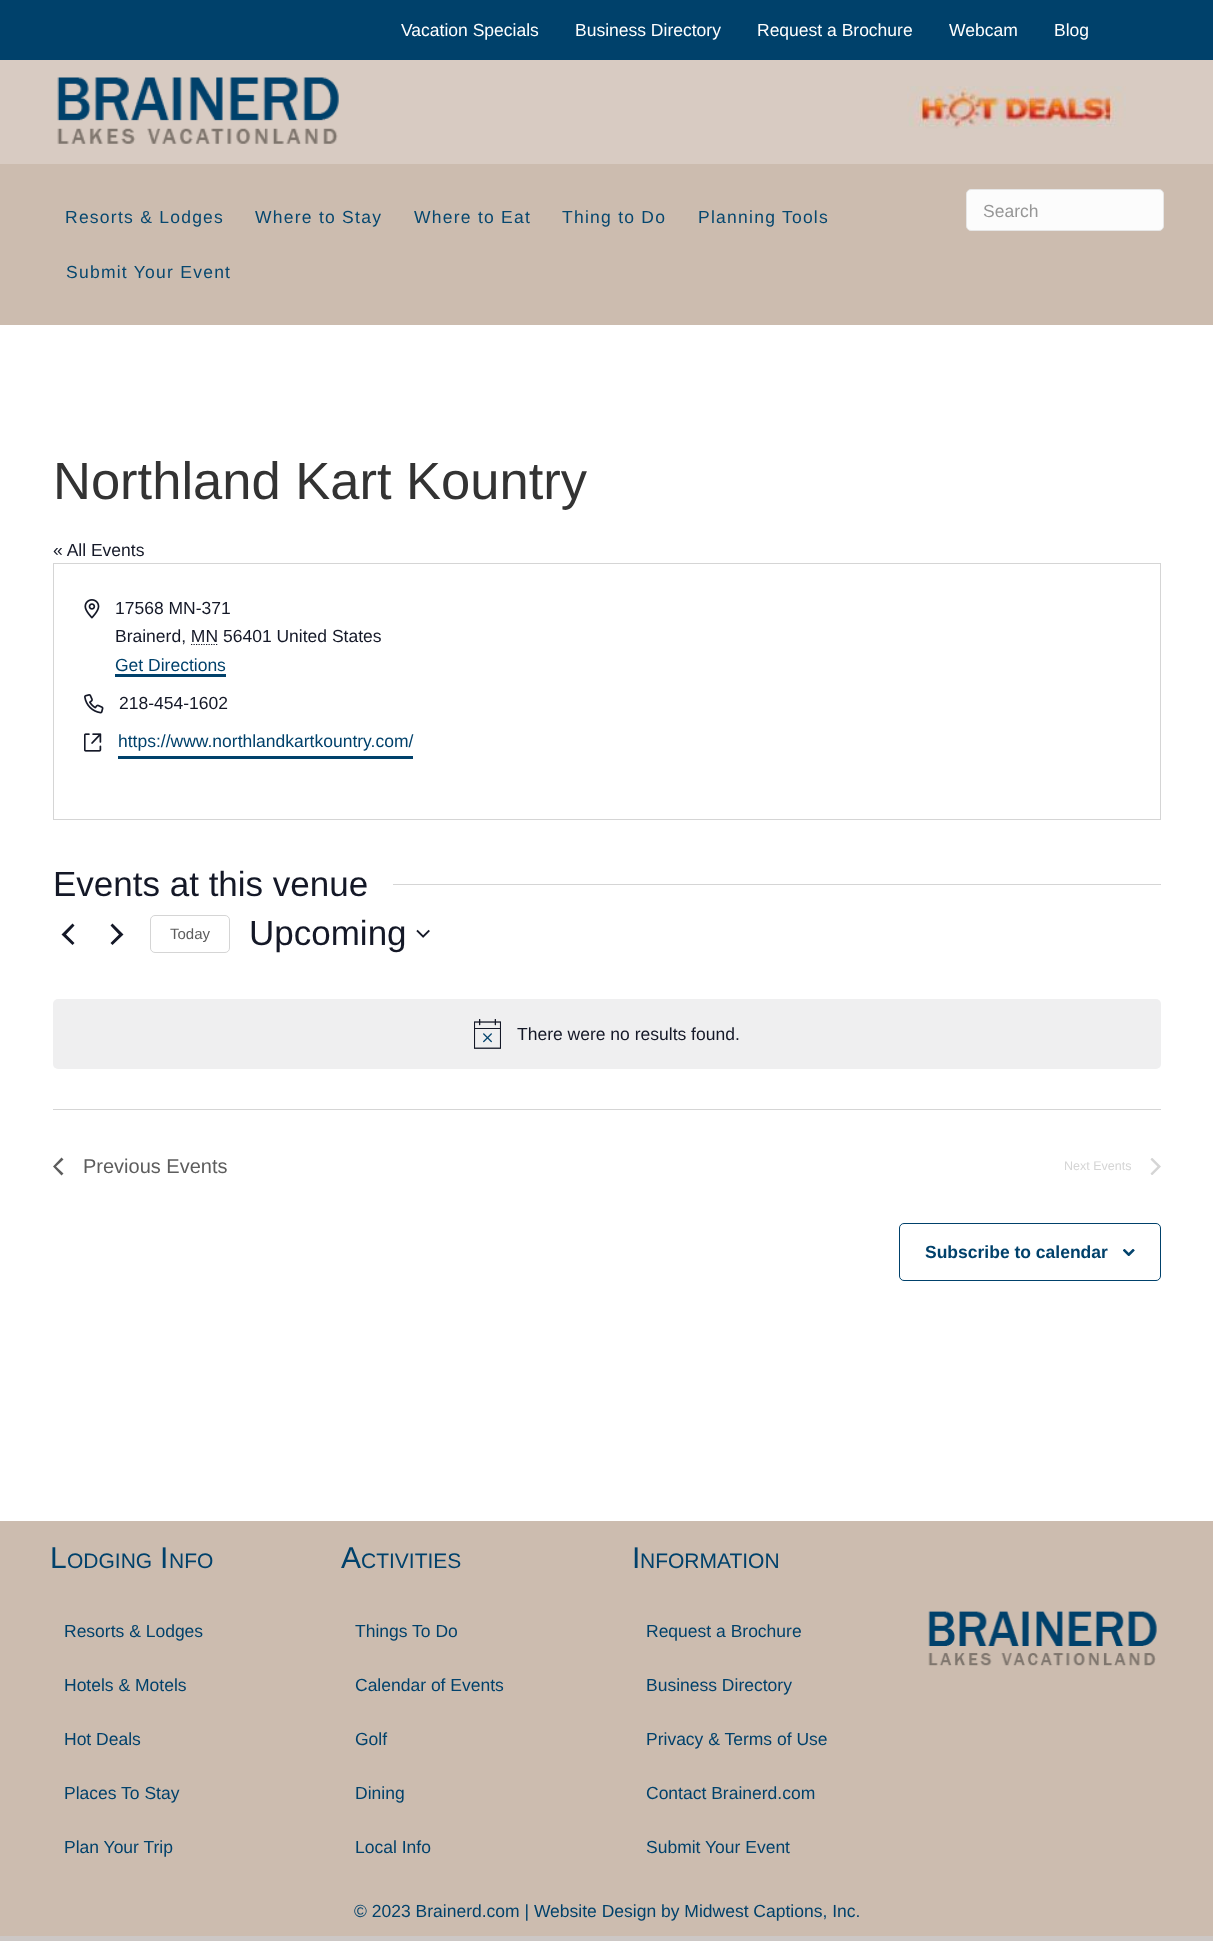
(async () => {
const canvas = document.querySelector("canvas")
canvas.width = 1213
canvas.height = 1941
const c = canvas.getContext("2d")
c.miterLimit = 4
c.fontKerning = "normal"
function T(s,x,y){c.fillText(s,x,y)}
function R(x,y,w,h){c.fillRect(x,y,w,h)}
function Q(x,y,w,h,r){c.beginPath();c.roundRect(x,y,w,h,r);c.fill()}
async function I(src,x,y,w,h){const img=new Image();img.src=src;await img.decode();c.drawImage(img,x,y,w,h)}
let path
c.fillStyle="#ccc7c5"
R(0,0,1213,1941)
c.fillStyle="#00416b"
R(0,0,1213,60)
c.font="17.5px Liberation Sans"
c.fillStyle="#fff"
T("Vacation Specials",401,36)
T("Business Directory",575,36)
T("Request a Brochure",757,36)
T("Webcam",949,36)
T("Blog",1054,36)
c.fillStyle="#d8cbc2"
R(0,60,1213,104)
await I("1.png",57,77,282,67)
await I("2.png",907,86,219,43)
c.fillStyle="#ccbcaf"
R(0,164,1213,161)
c.letterSpacing="1.25px"
c.fillStyle="#06476f"
T("Resorts & Lodges",65,223)
T("Where to Stay",255,223)
T("Where to Eat",414,223)
T("Thing to Do",562,223)
T("Planning Tools",698,223)
T("Submit Your Event",66,278)
c.fillStyle="#fcfcfc"
c.beginPath()
c.roundRect(966.5,189.5,197,41,4.5)
c.fill()
c.strokeStyle="#e6e6e6"
c.stroke()
c.letterSpacing="0px"
c.fillStyle="#979797"
T("Search",983,217)
c.fillStyle="#fff"
R(0,325,1213,1196)
c.font="52.5px Liberation Sans"
c.fillStyle="#333"
T("Northland Kart Kountry",53,499)
c.font="17.5px Liberation Sans"
c.fillStyle="#141827"
T("« All Events",53,556)
c.strokeStyle="#d5d5d5"
c.strokeRect(53.5,563.5,1107,256)
await I("3.png",84,599,16,20)
T("17568 MN-371",115,614)
T("Brainerd, MN 56401 United States",115,642)
path = new Path2D("M191 644.5h27")
c.strokeStyle="#141827"
c.lineWidth=1.2
c.setLineDash([1.25,1.25])
c.stroke(path)
c.fillStyle="#00416b"
T("Get Directions",115,671)
R(115,674,111,3)
await I("4.png",84,694,20,20)
c.fillStyle="#141827"
T("218-454-1602",119,709)
await I("5.png",84,733,18,19)
c.fillStyle="#00416b"
R(118,756,295,3)
T("https://www.northlandkartkountry.com/",118,747)
c.font="35px Liberation Sans"
c.fillStyle="#141827"
T("Events at this venue",53,896)
c.fillStyle="#d5d5d5"
R(393,884,768,1)
c.fillStyle="#141827"
path = new Path2D("M74.5 943l-2 2l-11-10.5l11-11l2 2l-8.5 9zm36-17.5l2-2l11 11l-11 10.5l-2-2l8.5-8.5z")
c.fill(path)
c.beginPath()
c.roundRect(150.5,915.5,79,37,4.5)
c.strokeStyle="#d5d5d5"
c.lineWidth=1
c.setLineDash([])
c.stroke()
c.font="15px Liberation Sans"
c.fillStyle="#5d5d5d"
T("Today",170,939)
c.font="35px Liberation Sans"
c.fillStyle="#141827"
T("Upcoming",249,945)
await I("6.png",416,929,14,9)
c.fillStyle="#efeff0"
Q(53,999,1108,70,5)
await I("7.png",474,1019,27,30)
c.font="17.5px Liberation Sans"
c.fillStyle="#141827"
T("There were no results found.",517,1040)
c.fillStyle="#d5d5d5"
R(53,1109,1108,1)
c.fillStyle="#5d5d5d"
path = new Path2D("M63.5 1173.5l-2 2l-8.5-9l8.5-9l2 2l-7.5 7z")
c.fill(path)
c.font="20px Liberation Sans"
T("Previous Events",83,1173)
c.font="12.5px Liberation Sans"
c.fillStyle="#d5d5d5"
T("Next Events",1064,1170)
c.save()
c.beginPath()
c.rect(1150,1158,11,17)
c.clip()
path = new Path2D("M1150.5 1159.5l1.5-2l9 9l-9 9l-1.5-2l7-7z")
c.fill(path)
c.restore()
c.beginPath()
c.roundRect(899.5,1223.5,261,57,4.5)
c.strokeStyle="#00416b"
c.stroke()
c.font="bold 17.5px Liberation Sans"
c.fillStyle="#00416b"
T("Subscribe to calendar",925,1258)
await I("8.png",1123,1249,12,7)
c.fillStyle="#ccbcaf"
R(0,1521,1213,415)
c.font="30px Liberation Sans"
c.fillStyle="#00416b"
T("L",50,1568)
c.font="21px Liberation Sans"
T("ODGING",67,1568)
c.font="30px Liberation Sans"
T("I",160,1568)
c.font="21px Liberation Sans"
T("NFO",169,1568)
c.font="17.5px Liberation Sans"
T("Resorts & Lodges",64,1637)
T("Hotels & Motels",64,1691)
T("Hot Deals",64,1745)
T("Places To Stay",64,1799)
T("Plan Your Trip",64,1853)
c.font="30px Liberation Sans"
T("A",341,1568)
c.font="21px Liberation Sans"
T("CTIVITIES",361,1568)
c.font="17.5px Liberation Sans"
T("Things To Do",355,1637)
T("Calendar of Events",355,1691)
T("Golf",355,1745)
T("Dining",355,1799)
T("Local Info",355,1853)
c.font="30px Liberation Sans"
T("I",632,1568)
c.font="21px Liberation Sans"
T("NFORMATION",640,1568)
c.font="17.5px Liberation Sans"
T("Request a Brochure",646,1637)
T("Business Directory",646,1691)
T("Privacy & Terms of Use",646,1745)
T("Contact Brainerd.com",646,1799)
T("Submit Your Event",646,1853)
await I("9.png",928,1611,229,55)
T("© 2023 Brainerd.com | Website Design by Midwest Captions, Inc.",354,1917)
})()
